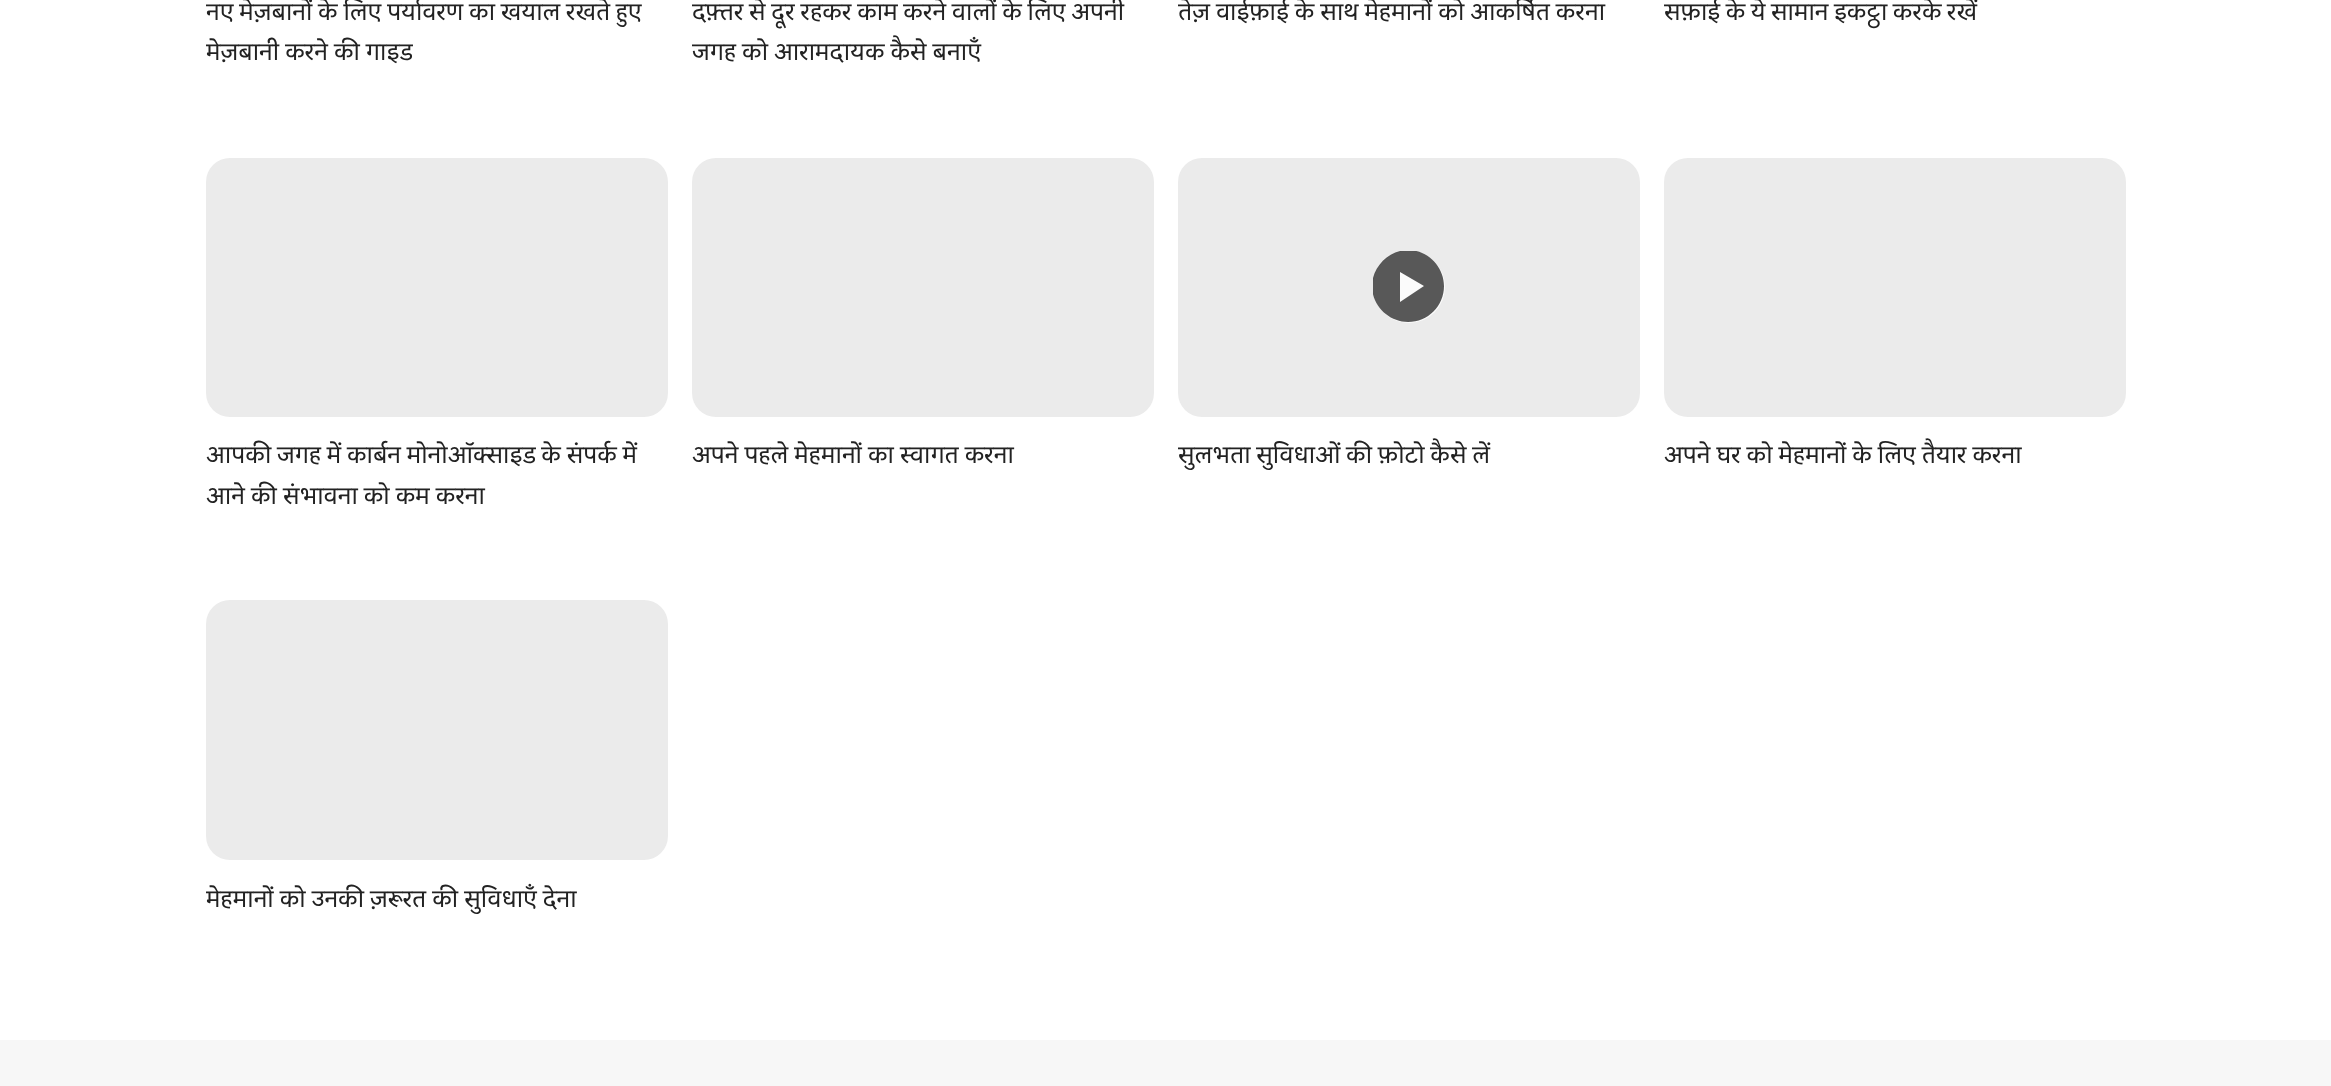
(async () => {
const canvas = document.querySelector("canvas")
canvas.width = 2331
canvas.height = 1086
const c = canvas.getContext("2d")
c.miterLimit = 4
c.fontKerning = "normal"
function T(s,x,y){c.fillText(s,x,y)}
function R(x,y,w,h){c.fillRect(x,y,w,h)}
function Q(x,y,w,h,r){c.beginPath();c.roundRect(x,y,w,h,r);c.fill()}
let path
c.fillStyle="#fff"
R(0,0,2331,1086)
c.save()
c.beginPath()
c.rect(206,0,462,74)
c.clip()
c.wordSpacing="-0.75px"
c.font="24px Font"
c.fillStyle="#222"
T("नए मेज़बानों के लिए पर्यावरण का खयाल रखते हुए",206,20)
c.wordSpacing="-0.5px"
T("मेज़बानी करने की गाइड",206,60)
c.restore()
c.save()
c.beginPath()
c.rect(692,0,462,74)
c.clip()
c.wordSpacing="-0.75px"
c.font="24px Font"
c.fillStyle="#222"
T("दफ़्तर से दूर रहकर काम करने वालों के लिए अपनी",692,20)
c.wordSpacing="-0.5px"
T("जगह को आरामदायक कैसे बनाएँ",692,60)
c.restore()
c.save()
c.beginPath()
c.rect(1178,0,462,32)
c.clip()
c.wordSpacing="-0.5px"
c.font="24px Font"
c.fillStyle="#222"
T("तेज़ वाईफ़ाई के साथ मेहमानों को आकर्षित करना",1178,20)
c.restore()
c.save()
c.beginPath()
c.rect(1664,0,462,32)
c.clip()
c.wordSpacing="-1px"
c.font="24px Font"
c.fillStyle="#222"
T("सफ़ाई के ये सामान इकट्ठा करके रखें",1664,20)
c.restore()
c.fillStyle="#ebebeb"
Q(206,158,462,259,24)
c.wordSpacing="-0.75px"
c.font="24px Font"
c.fillStyle="#222"
T("आपकी जगह में कार्बन मोनोऑक्साइड के संपर्क में",206,463)
c.wordSpacing="-0.5px"
T("आने की संभावना को कम करना",206,504)
c.fillStyle="#ebebeb"
Q(692,158,462,259,24)
c.fillStyle="#222"
T("अपने पहले मेहमानों का स्वागत करना",692,463)
c.fillStyle="#ebebeb"
Q(1178,158,462,259,24)
c.fillStyle="#fbfbfb"
c.beginPath()
c.arc(1409,287,36,0,7)
c.fill()
c.save()
c.beginPath()
c.rect(1373,251,72,72)
c.clip()
c.fillStyle="#2f2f2fcc"
path = new Path2D("M1408 250c-19 0-36 17-36 36c0 20 17 36 36 36c20 0 36-16 36-36c0-19-16-36-36-36zm-8 52v-30l24 14z")
c.fill(path,"evenodd")
c.restore()
c.save()
c.beginPath()
c.rect(1178,435,462,41)
c.clip()
c.wordSpacing="-0.75px"
c.fillStyle="#222"
T("सुलभता सुविधाओं की फ़ोटो कैसे लें",1178,463)
c.restore()
c.fillStyle="#ebebeb"
Q(1664,158,462,259,24)
c.fillStyle="#222"
T("अपने घर को मेहमानों के लिए तैयार करना",1664,463)
c.fillStyle="#ebebeb"
Q(206,600,462,260,24)
c.save()
c.beginPath()
c.rect(206,878,462,42)
c.clip()
c.fillStyle="#222"
T("मेहमानों को उनकी ज़रूरत की सुविधाएँ देना",206,907)
c.restore()
c.fillStyle="#f7f7f7"
R(0,1040,2331,46)
})()
